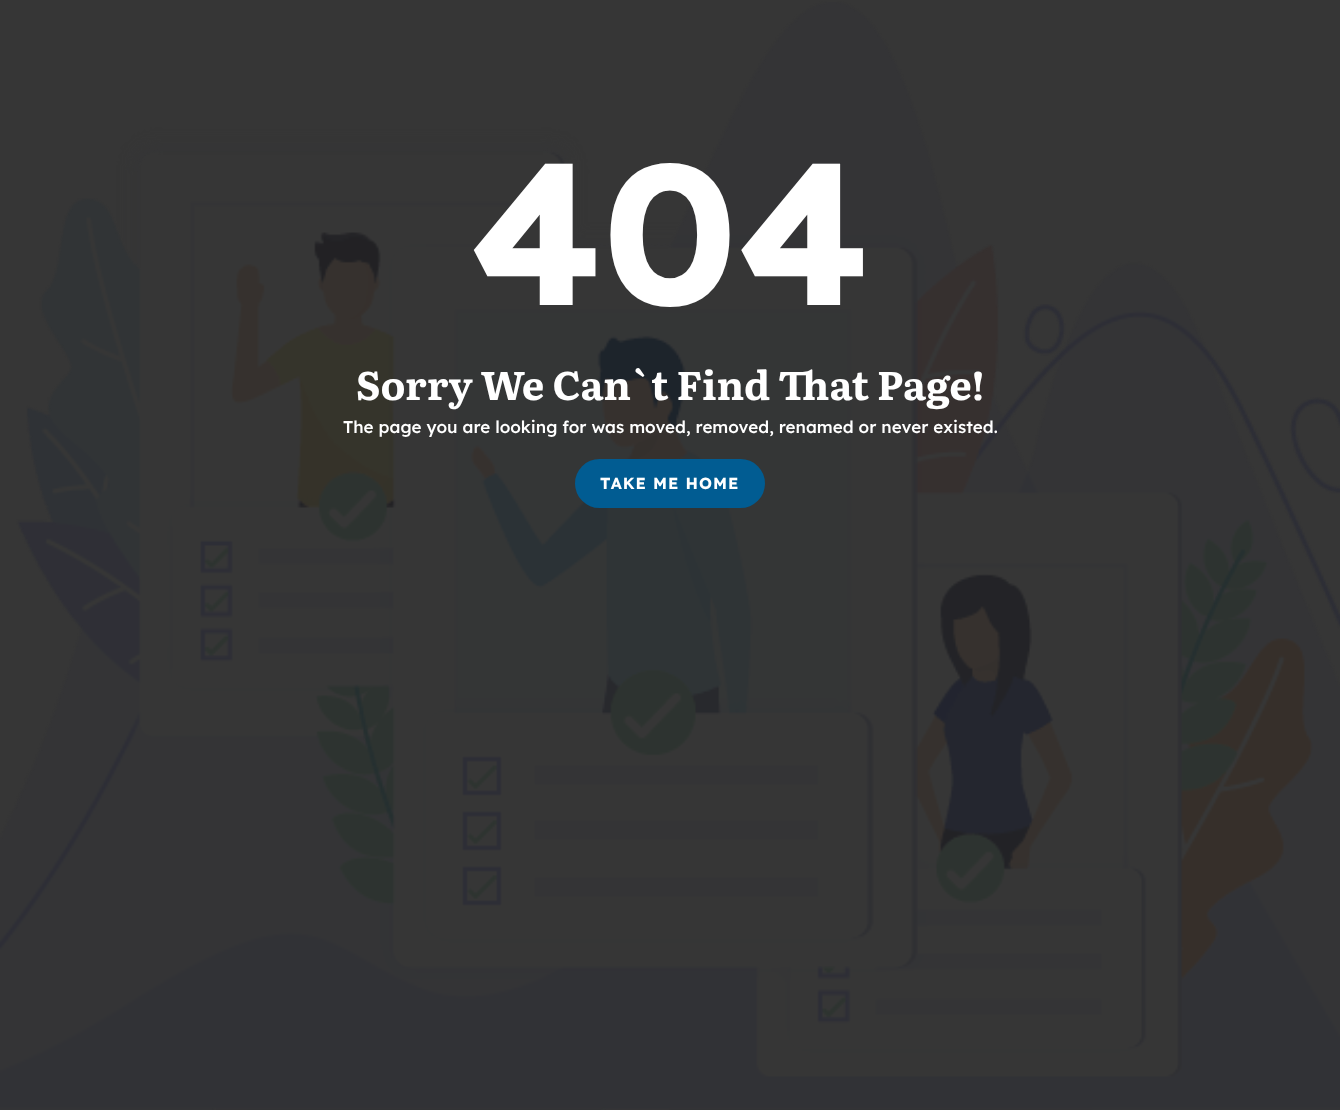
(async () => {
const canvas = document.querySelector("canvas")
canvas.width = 1340
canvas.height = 1110
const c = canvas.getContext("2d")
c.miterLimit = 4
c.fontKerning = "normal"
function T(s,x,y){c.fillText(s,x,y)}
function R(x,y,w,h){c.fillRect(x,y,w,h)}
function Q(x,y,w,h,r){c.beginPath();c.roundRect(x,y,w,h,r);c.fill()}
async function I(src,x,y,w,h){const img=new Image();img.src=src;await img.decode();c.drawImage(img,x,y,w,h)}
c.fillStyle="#363636"
R(0,0,1340,1110)
await I("1.png",0,1,1340,1109)
c.font="bold 200px Lexend Deca"
c.fillStyle="#fff"
T("404",470,305)
c.font="bold 40px Literata"
T("Sorry We Can`t Find That Page!",356,400)
c.font="500 17px Lexend Deca"
T("The page you are looking for was moved, removed, renamed or never existed.",343,433)
c.fillStyle="#015c92"
Q(575,459,190,49,24.5)
c.letterSpacing="1px"
c.font="bold 16px Lexend Deca"
c.fillStyle="#fff"
T("TAKE ME HOME",600,489)
})()
